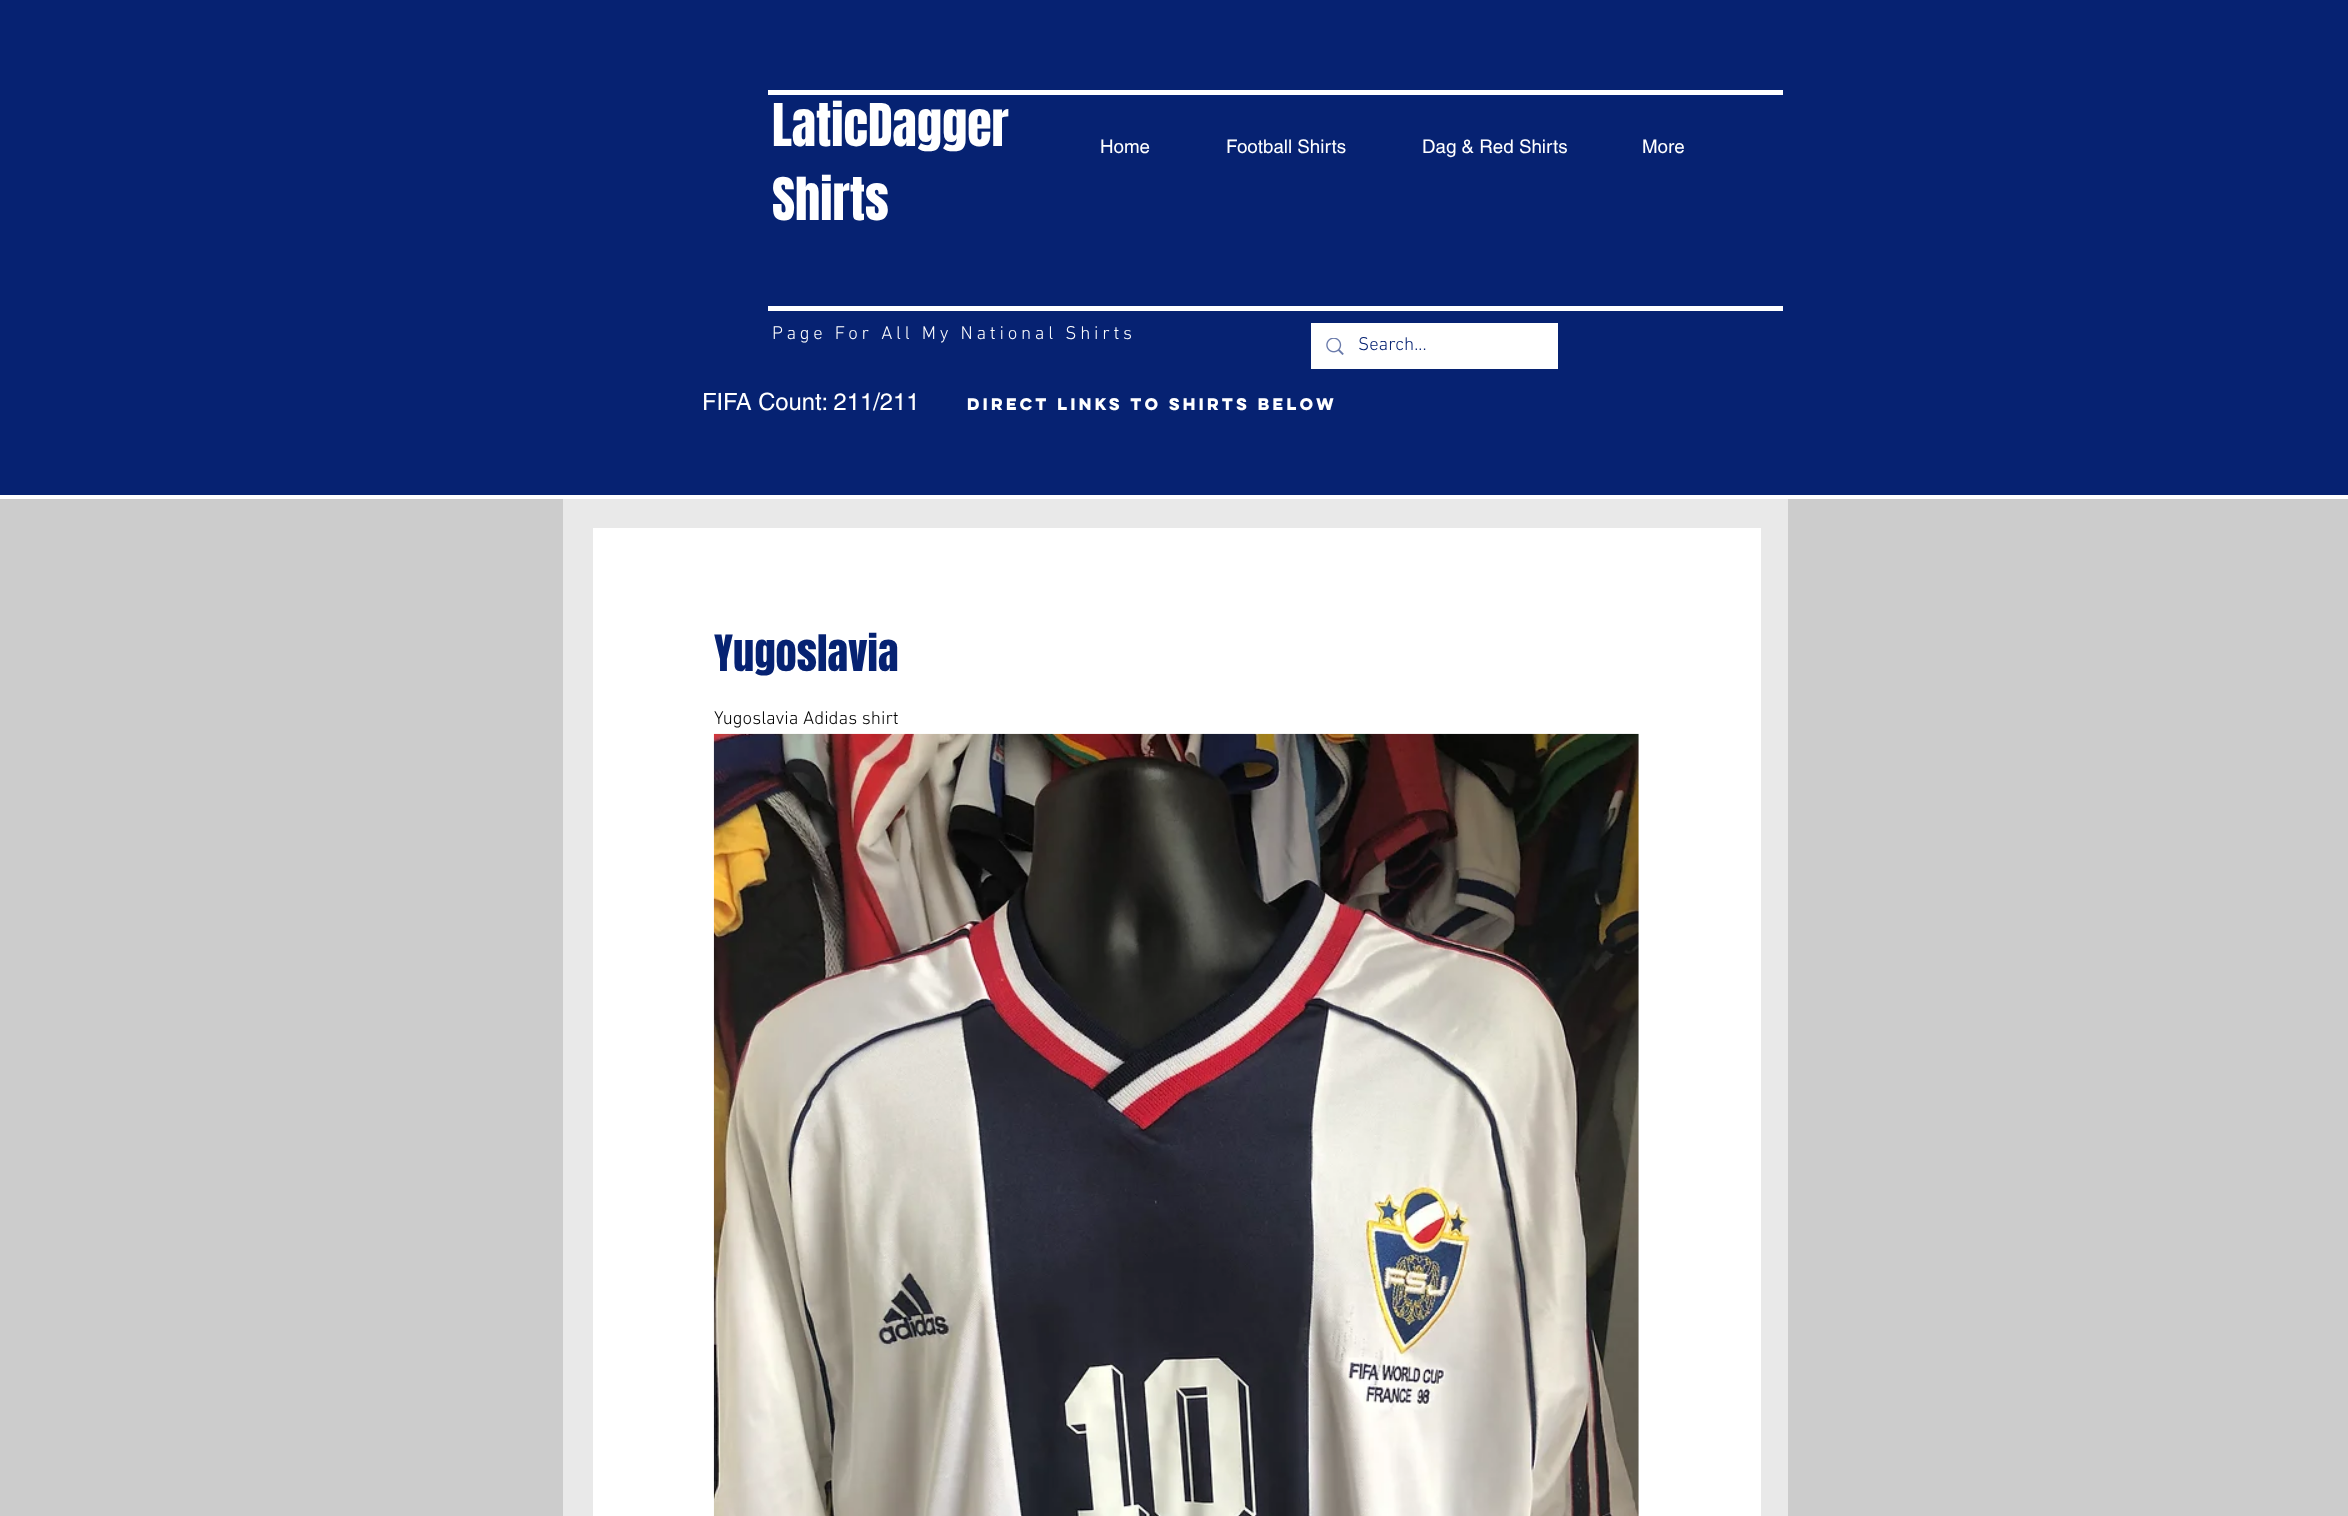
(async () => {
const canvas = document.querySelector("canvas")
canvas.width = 2348
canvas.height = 1516
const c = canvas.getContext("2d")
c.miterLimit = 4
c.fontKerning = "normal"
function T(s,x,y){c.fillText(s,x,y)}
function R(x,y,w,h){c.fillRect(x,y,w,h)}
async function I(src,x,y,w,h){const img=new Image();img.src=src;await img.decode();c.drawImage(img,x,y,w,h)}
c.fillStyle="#ccc"
R(0,0,2348,1516)
c.fillStyle="#062272"
R(0,0,2348,495)
c.fillStyle="#fff"
R(0,495,2348,4)
R(768,90,1015,5)
c.font="50px Anton"
T("LaticDagger",772,146)
T("Shirts",772,220)
c.font="18.75px helvetica"
T("Home",1100,153)
T("Football Shirts",1226,153)
T("Dag & Red Shirts",1422,153)
T("More",1642,153)
R(768,306,1015,5)
c.letterSpacing="3.75px"
c.font="300 18.75px 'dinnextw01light'"
T("Page For All My National Shirts",772,339)
R(1311,323,247,46)
await I("1.png",1326,338,18,17)
c.letterSpacing="0px"
c.fillStyle="#062272"
T("Search...",1358,350)
c.font="23.75px helvetica"
c.fillStyle="#fff"
T("FIFA Count: 211/211",702,410)
c.font="bold 15px 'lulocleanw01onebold'"
T("DIRECT LINKS TO SHIRTS BELOW",967,410)
c.fillStyle="#e9e9e9"
R(563,499,1225,1017)
c.fillStyle="#fff"
R(593,528,1168,988)
c.font="42.5px Anton"
c.fillStyle="#062272"
T("Yugoslavia",714,671)
c.font="300 18.75px 'dinnextw01light'"
c.fillStyle="#000"
T("Yugoslavia Adidas shirt",714,724)
await I("2.png",713,733,926,783)
})()
